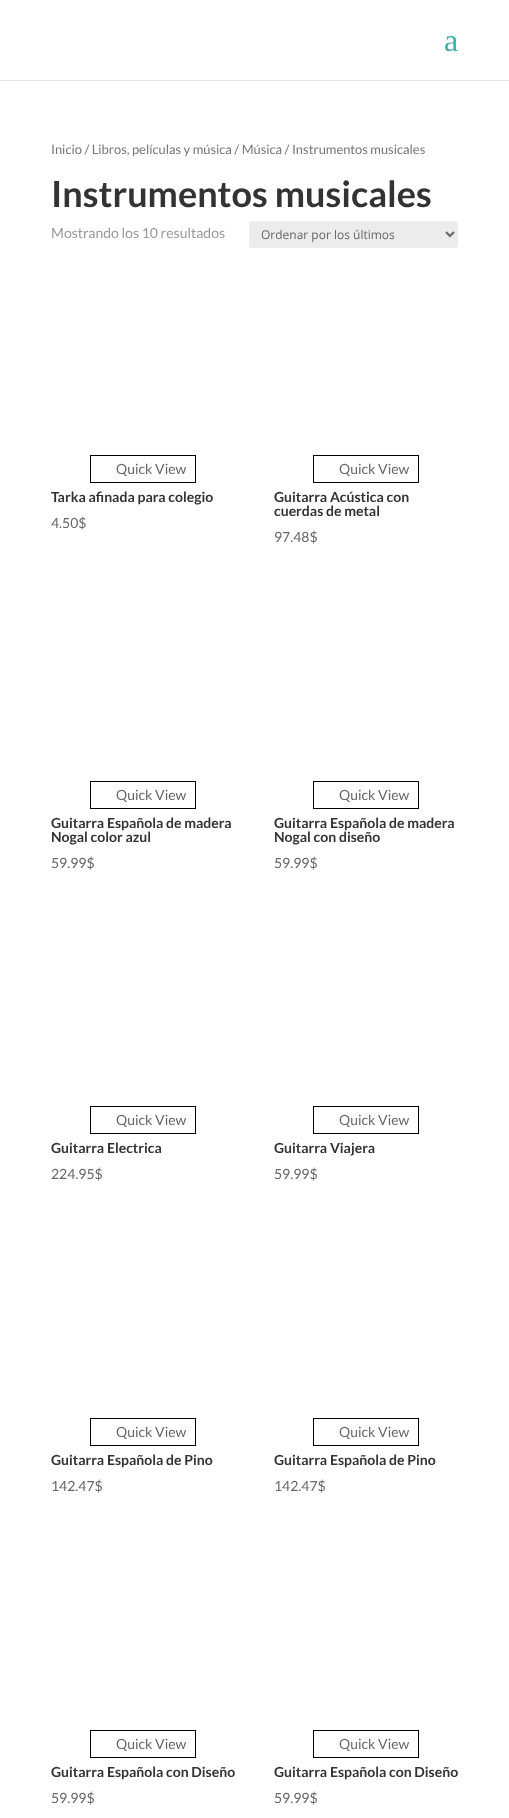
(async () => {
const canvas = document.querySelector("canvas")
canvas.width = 509
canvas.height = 1818
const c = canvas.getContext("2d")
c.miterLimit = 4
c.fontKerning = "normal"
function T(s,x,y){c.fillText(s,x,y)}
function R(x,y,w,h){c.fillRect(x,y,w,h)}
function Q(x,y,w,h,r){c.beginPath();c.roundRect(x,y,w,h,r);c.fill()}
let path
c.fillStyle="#fff"
R(0,0,509,1818)
c.fillStyle="#e6e6e6"
R(0,80,509,1)
c.font="32px Liberation Serif"
c.fillStyle="#3fb0ac"
T("a",444,51)
c.font="12.9px Lato"
c.fillStyle="#767676"
T("Inicio / Libros, películas y música / Música / Instrumentos musicales",51,154)
c.font="bold 36px Lato"
c.fillStyle="#333"
T("Instrumentos musicales",51,207)
c.font="14px Lato"
c.fillStyle="#999"
T("Mostrando los 10 resultados",51,238)
c.fillStyle="#ececec"
Q(249,221,209,27,3)
path = new Path2D("M446 232l4 4l4-4")
c.strokeStyle="#666"
c.lineWidth=2
c.stroke(path)
c.font="12px Open Sans"
c.fillStyle="#666"
T("Ordenar por los últimos",261,239)
c.strokeStyle="#000"
c.lineWidth=1
c.strokeRect(90.5,455.5,105,27)
c.font="14px Lato"
T("Quick View",116,474)
c.font="bold 14px Lato"
c.fillStyle="#333"
T("Tarka afinada para colegio",51,502)
c.font="14px Lato"
c.fillStyle="#666"
T("4.50$",51,528)
c.strokeRect(313.5,455.5,105,27)
T("Quick View",339,474)
c.font="bold 14px Lato"
c.fillStyle="#333"
T("Guitarra Acústica con",274,502)
T("cuerdas de metal",274,516)
c.font="14px Lato"
c.fillStyle="#666"
T("97.48$",274,542)
c.strokeRect(90.5,781.5,105,27)
T("Quick View",116,800)
c.font="bold 14px Lato"
c.fillStyle="#333"
T("Guitarra Española de madera",51,828)
T("Nogal color azul",51,842)
c.font="14px Lato"
c.fillStyle="#666"
T("59.99$",51,868)
c.strokeRect(313.5,781.5,105,27)
T("Quick View",339,800)
c.font="bold 14px Lato"
c.fillStyle="#333"
T("Guitarra Española de madera",274,828)
T("Nogal con diseño",274,842)
c.font="14px Lato"
c.fillStyle="#666"
T("59.99$",274,868)
c.strokeRect(90.5,1106.5,105,27)
T("Quick View",116,1125)
c.font="bold 14px Lato"
c.fillStyle="#333"
T("Guitarra Electrica",51,1153)
c.font="14px Lato"
c.fillStyle="#666"
T("224.95$",51,1179)
c.strokeRect(313.5,1106.5,105,27)
T("Quick View",339,1125)
c.font="bold 14px Lato"
c.fillStyle="#333"
T("Guitarra Viajera",274,1153)
c.font="14px Lato"
c.fillStyle="#666"
T("59.99$",274,1179)
c.strokeRect(90.5,1418.5,105,27)
T("Quick View",116,1437)
c.font="bold 14px Lato"
c.fillStyle="#333"
T("Guitarra Española de Pino",51,1465)
c.font="14px Lato"
c.fillStyle="#666"
T("142.47$",51,1491)
c.strokeRect(313.5,1418.5,105,27)
T("Quick View",339,1437)
c.font="bold 14px Lato"
c.fillStyle="#333"
T("Guitarra Española de Pino",274,1465)
c.font="14px Lato"
c.fillStyle="#666"
T("142.47$",274,1491)
c.strokeRect(90.5,1730.5,105,27)
T("Quick View",116,1749)
c.font="bold 14px Lato"
c.fillStyle="#333"
T("Guitarra Española con Diseño",51,1777)
c.font="14px Lato"
c.fillStyle="#666"
T("59.99$",51,1803)
c.strokeRect(313.5,1730.5,105,27)
T("Quick View",339,1749)
c.font="bold 14px Lato"
c.fillStyle="#333"
T("Guitarra Española con Diseño",274,1777)
c.font="14px Lato"
c.fillStyle="#666"
T("59.99$",274,1803)
})()
